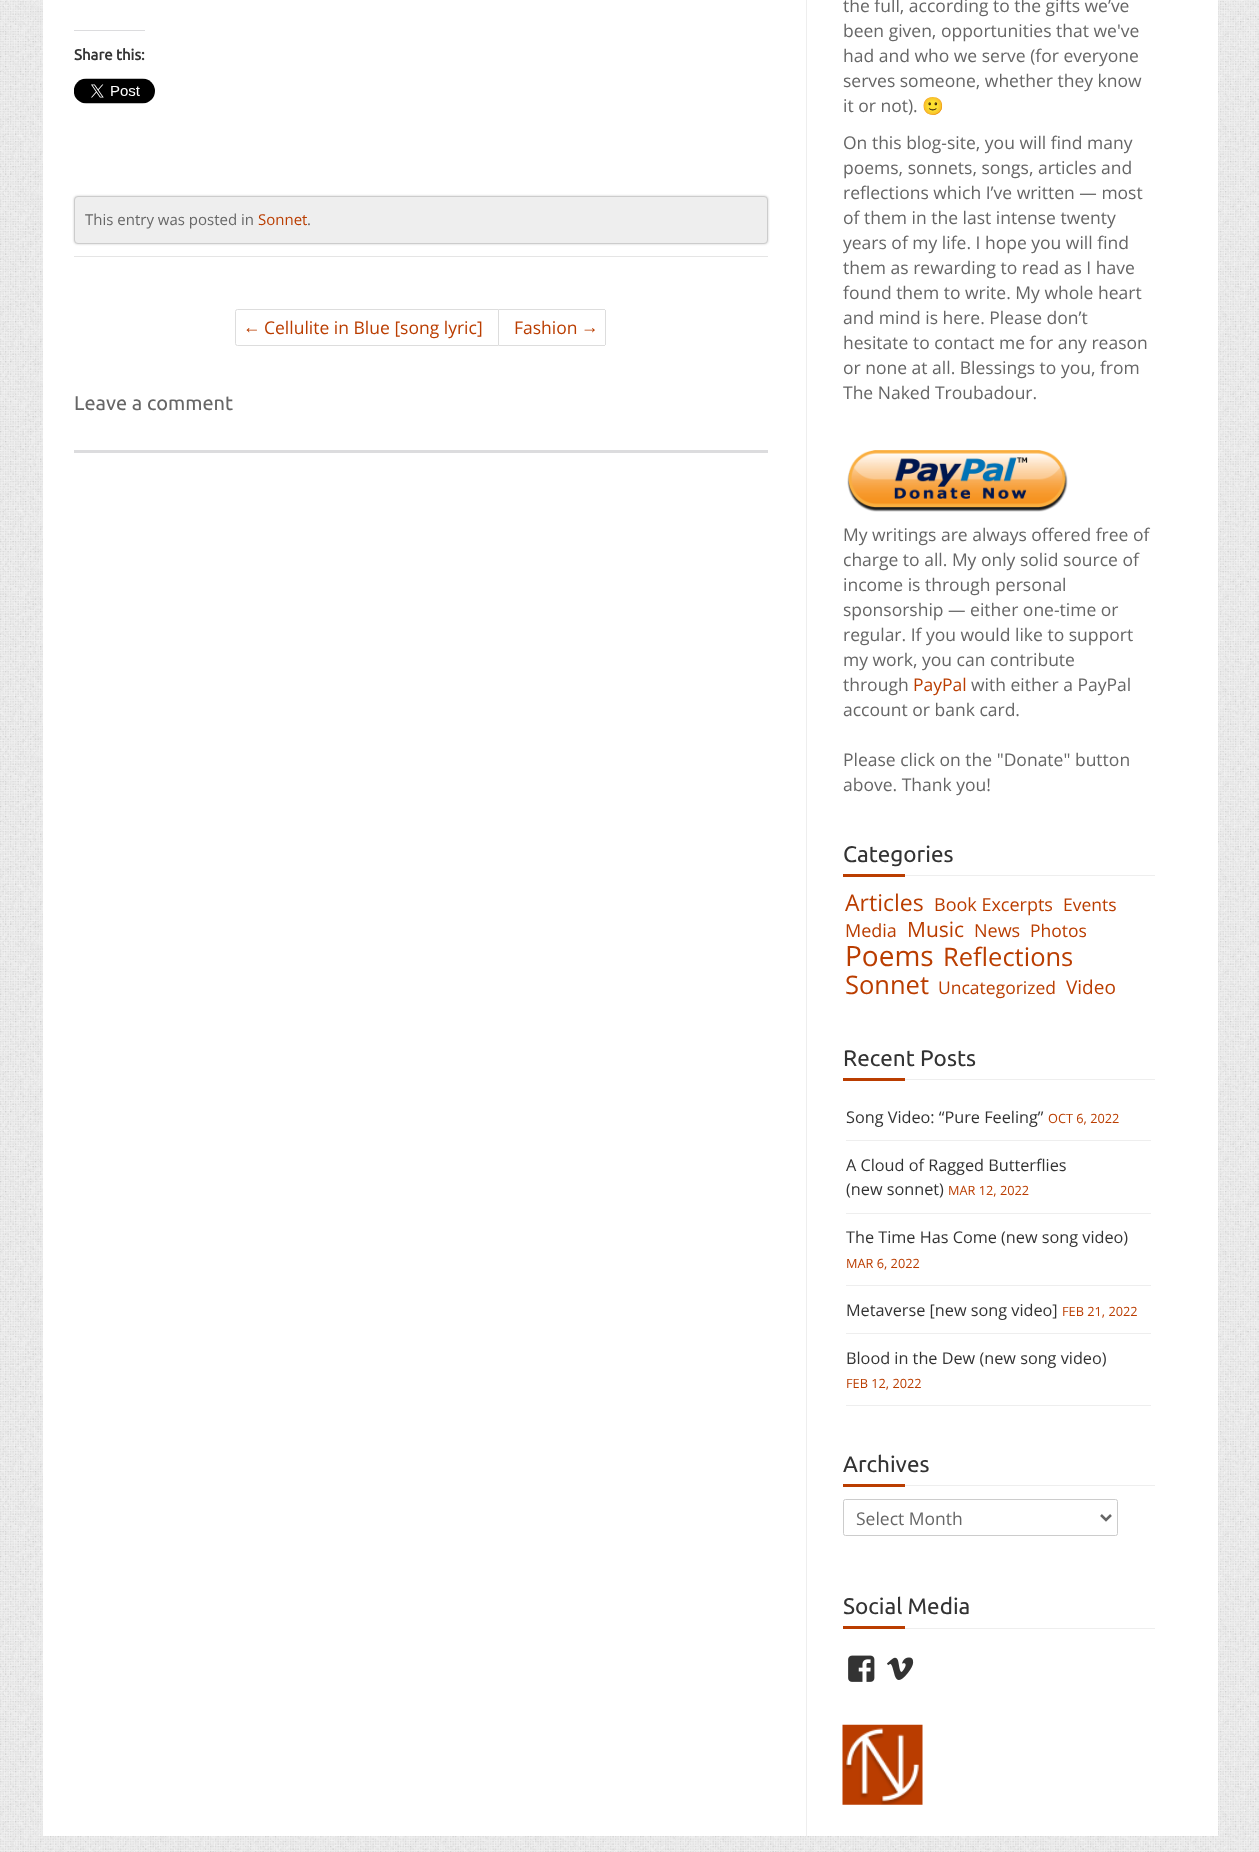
(async () => {
const canvas = document.querySelector("canvas")
canvas.width = 1259
canvas.height = 1852
const c = canvas.getContext("2d")
c.miterLimit = 4
c.fontKerning = "none"
function T(s,x,y){c.fillText(s,x,y)}
function R(x,y,w,h){c.fillRect(x,y,w,h)}
async function I(src,x,y,w,h){const img=new Image();img.src=src;await img.decode();c.drawImage(img,x,y,w,h)}
let path
c.fillStyle="#fff"
R(0,0,1259,1852)
await I("1.png",0,0,1259,1852)
R(43,0,1175,1836)
c.fillStyle="#dcdcde"
R(74,30,71,1)
c.font="bold 15px Ubuntu"
c.fillStyle="#333"
T("Share this:",74,60)
await I("2.png",74,78,81,26)
c.fillStyle="#99999980"
c.filter="blur(1px)"
c.beginPath()
c.roundRect(74,196,694,48,4)
c.fill()
c.filter="none"
c.fillStyle="#eee"
c.beginPath()
c.roundRect(74.5,196.5,693,47,3.5)
c.fill()
c.strokeStyle="#ccc"
c.stroke()
c.font="15px Open Sans"
c.fillStyle="#666"
T("This entry was posted in",85,225)
c.fillStyle="#ba3d00"
T("Sonnet",258,225)
c.fillStyle="#666"
T(".",307,225)
c.fillStyle="#e5e5e5"
R(74,256,694,1)
c.beginPath()
c.roundRect(235.5,309.5,263,36,[2,0,0,2])
c.strokeStyle="#ddd"
c.stroke()
c.font="17.5px Liberation Sans"
c.fillStyle="#ba3d00"
T("←",243,333)
c.font="17.5px Open Sans"
T("Cellulite in Blue [song lyric]",264,334)
c.fillStyle="#ddd"
R(499,309,106,1)
R(605,310,1,35)
R(499,345,106,1)
c.fillStyle="#ba3d00"
T("Fashion",514,334)
c.font="17.5px Liberation Sans"
T("→",581,333)
c.font="20px Ubuntu"
c.fillStyle="#666"
T("Leave a comment",74,410)
c.fillStyle="#dcdcde"
R(74,450,694,3)
c.font="17.5px Open Sans"
c.fillStyle="#666"
T("the full, according to the gifts we’ve",843,12)
T("been given, opportunities that we've",843,37)
T("had and who we serve (for everyone",843,62)
T("serves someone, whether they know",843,87)
T("it or not).",843,112)
c.font="17.5px Noto Color Emoji"
T("🙂",922,112)
c.font="17.5px Open Sans"
T("On this blog-site, you will find many",843,149)
T("poems, sonnets, songs, articles and",843,174)
T("reflections which I’ve written — most",843,199)
T("of them in the last intense twenty",843,224)
T("years of my life. I hope you will find",843,249)
T("them as rewarding to read as I have",843,274)
T("found them to write. My whole heart",843,299)
T("and mind is here. Please don’t",843,324)
T("hesitate to contact me for any reason",843,349)
T("or none at all. Blessings to you, from",843,374)
T("The Naked Troubadour.",843,399)
await I("3.png",847,450,221,62)
T("My writings are always offered free of",843,541)
T("charge to all. My only solid source of",843,566)
T("income is through personal",843,591)
T("sponsorship — either one-time or",843,616)
T("regular. If you would like to support",843,641)
T("my work, you can contribute",843,666)
T("through",843,691)
c.fillStyle="#ba3d00"
T("PayPal",913,691)
c.fillStyle="#666"
T("with either a PayPal",971,691)
T("account or bank card.",843,716)
T("Please click on the \"Donate\" button",843,766)
T("above. Thank you!",843,791)
c.fillStyle="#eee"
R(905,875,250,1)
c.font="22.5px Ubuntu"
c.fillStyle="#333"
T("Categories",843,862)
c.fillStyle="#ba3d00"
R(843,874,62,3)
c.font="23px Open Sans"
T("Articles",845,911)
c.font="18px Open Sans"
T("Book Excerpts",934,911)
c.font="17.5px Open Sans"
T("Events",1063,911)
c.font="18px Open Sans"
T("Media",845,937)
c.font="21px Open Sans"
T("Music",907,937)
c.font="18px Open Sans"
T("News",974,937)
c.font="17.5px Open Sans"
T("Photos",1030,937)
c.font="28px Open Sans"
T("Poems",845,966)
c.font="25.5px Open Sans"
T("Reflections",943,966)
T("Sonnet",845,994)
c.font="17.5px Open Sans"
T("Uncategorized",938,994)
c.font="19px Open Sans"
T("Video",1066,994)
c.fillStyle="#eee"
R(905,1079,250,1)
c.font="22.5px Ubuntu"
c.fillStyle="#333"
T("Recent Posts",843,1066)
c.fillStyle="#ba3d00"
R(843,1078,62,3)
c.fillStyle="#eee"
R(846,1140,305,1)
c.font="16.25px Open Sans"
c.fillStyle="#333"
T("Song Video: “Pure Feeling”",846,1123)
c.font="12.75px Open Sans"
c.fillStyle="#ba3d00"
T("OCT 6, 2022",1048,1123)
c.fillStyle="#eee"
R(846,1213,305,1)
c.font="16.25px Open Sans"
c.fillStyle="#333"
T("A Cloud of Ragged Butterflies",846,1171)
T("(new sonnet)",846,1195)
c.font="12.75px Open Sans"
c.fillStyle="#ba3d00"
T("MAR 12, 2022",948,1195)
c.fillStyle="#eee"
R(846,1285,305,1)
c.font="16.25px Open Sans"
c.fillStyle="#333"
T("The Time Has Come (new song video)",846,1243)
c.font="12.75px Open Sans"
c.fillStyle="#ba3d00"
T("MAR 6, 2022",846,1268)
c.fillStyle="#eee"
R(846,1333,305,1)
c.font="16.25px Open Sans"
c.fillStyle="#333"
T("Metaverse [new song video]",846,1316)
c.font="12.75px Open Sans"
c.fillStyle="#ba3d00"
T("FEB 21, 2022",1062,1316)
c.fillStyle="#eee"
R(846,1405,305,1)
c.font="16.25px Open Sans"
c.fillStyle="#333"
T("Blood in the Dew (new song video)",846,1364)
c.font="12.75px Open Sans"
c.fillStyle="#ba3d00"
T("FEB 12, 2022",846,1388)
c.fillStyle="#eee"
R(905,1485,250,1)
c.font="22.5px Ubuntu"
c.fillStyle="#333"
T("Archives",843,1472)
c.fillStyle="#ba3d00"
R(843,1484,62,3)
c.beginPath()
c.roundRect(843.5,1499.5,274,36,2)
c.strokeStyle="#ccc"
c.stroke()
path = new Path2D("M1101 1515l5 5l5-5")
c.strokeStyle="#666"
c.lineWidth=2.5
c.stroke(path)
c.font="17.5px Open Sans"
c.fillStyle="#666"
T("Select Month",856,1525)
c.fillStyle="#eee"
R(905,1628,250,1)
c.font="22.5px Ubuntu"
c.fillStyle="#333"
T("Social Media",843,1614)
c.fillStyle="#ba3d00"
R(843,1626,62,3)
await I("4.png",848,1655,27,27)
await I("5.png",887,1657,27,23)
await I("6.png",842,1724,81,81)
c.fillStyle="#eee"
R(806,0,1,1836)
})()
